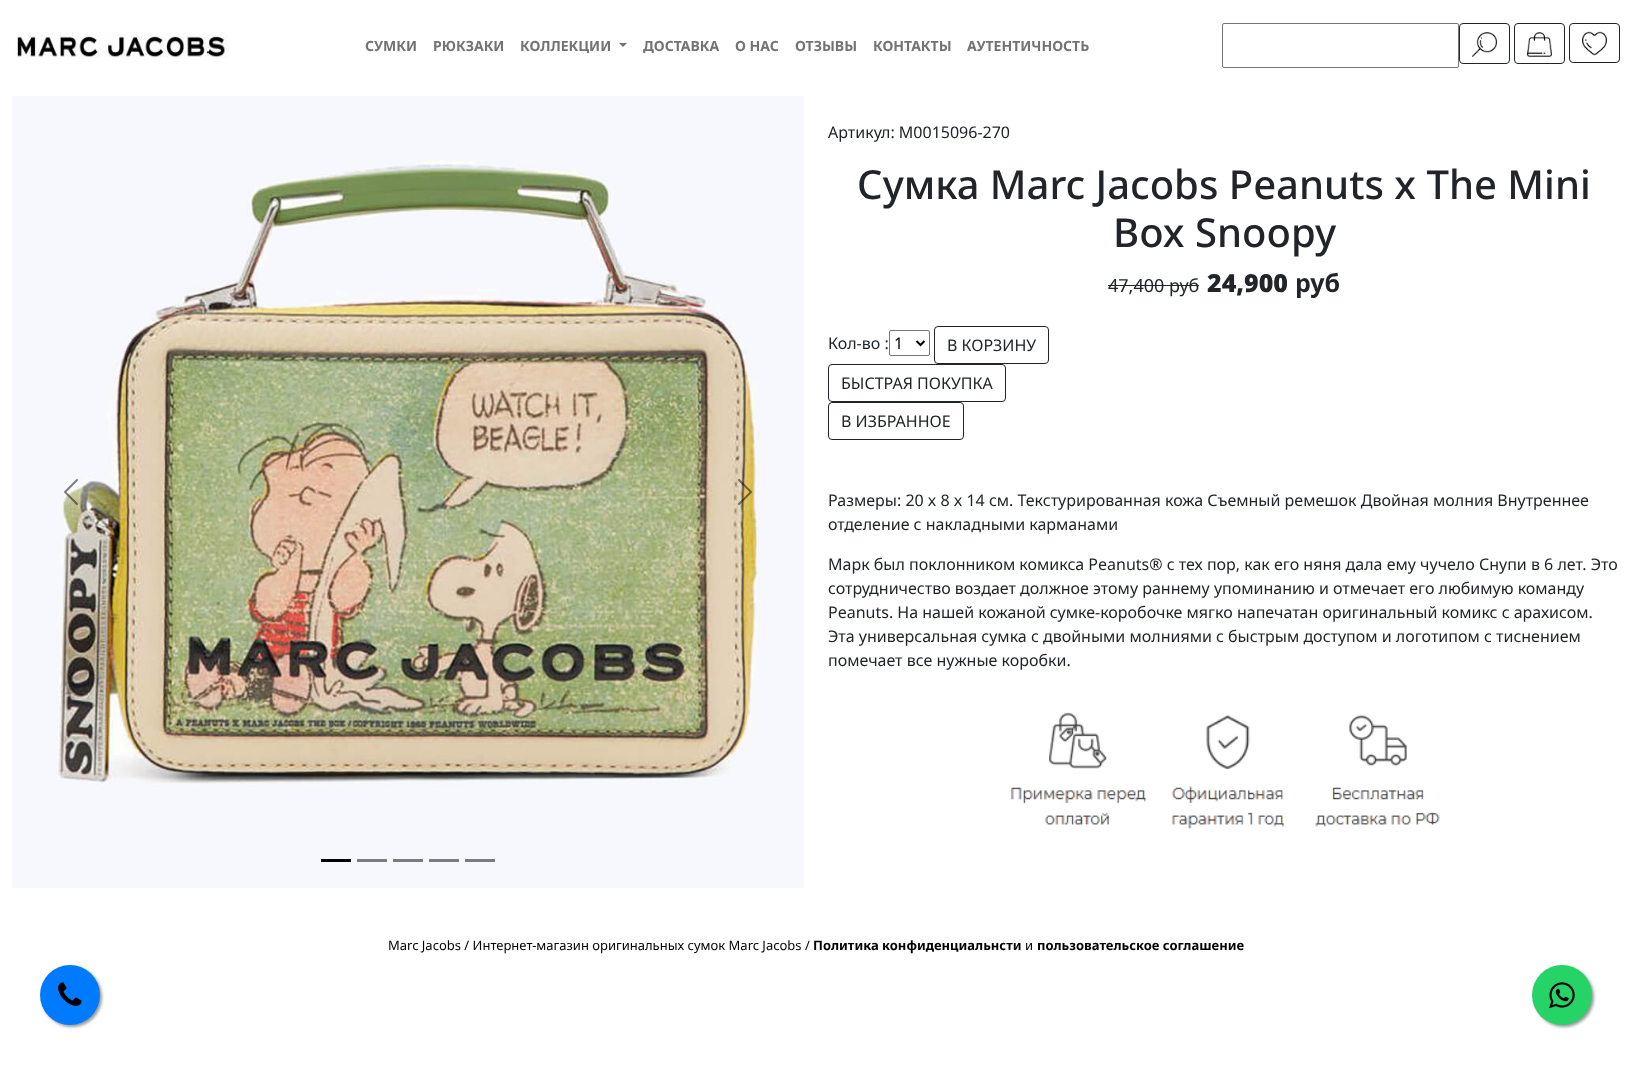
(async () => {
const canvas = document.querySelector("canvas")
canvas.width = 1632
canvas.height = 1065
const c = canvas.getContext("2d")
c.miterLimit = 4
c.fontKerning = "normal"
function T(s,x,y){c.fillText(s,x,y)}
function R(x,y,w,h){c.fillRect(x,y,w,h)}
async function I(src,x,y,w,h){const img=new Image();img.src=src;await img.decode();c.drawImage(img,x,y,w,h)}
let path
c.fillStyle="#fff"
R(0,0,1632,1065)
await I("1.png",15,32,213,26)
c.font="bold 14px Noto Sans"
c.fillStyle="#737373"
T("СУМКИ",365,51)
T("РЮКЗАКИ",433,51)
T("КОЛЛЕКЦИИ",520,51)
path = new Path2D("M619 43h8l-4 4z")
c.fill(path)
T("ДОСТАВКА",643,51)
T("О НАС",735,51)
T("ОТЗЫВЫ",795,51)
T("КОНТАКТЫ",873,51)
T("АУТЕНТИЧНОСТЬ",967,51)
c.beginPath()
c.roundRect(1222.5,23.5,236,44,1.5)
c.strokeStyle="#767676"
c.stroke()
c.beginPath()
c.roundRect(1459.5,23.5,50,40,3.5)
c.strokeStyle="#212529"
c.stroke()
await I("2.png",1472,32,25,25)
c.beginPath()
c.roundRect(1514.5,23.5,50,40,3.5)
c.stroke()
await I("3.png",1527,32,25,25)
c.beginPath()
c.roundRect(1569.5,23.5,50,39,3.5)
c.stroke()
await I("4.png",1582,31,25,25)
await I("5.png",12,96,792,792)
await I("6.png",64,479,14,26)
await I("7.png",738,479,14,26)
c.fillStyle="#000"
R(321,859,30,3)
c.fillStyle="#7c7c7f"
R(357,859,30,3)
R(393,859,30,3)
R(429,859,30,3)
R(465,859,30,3)
c.font="16px Noto Sans"
c.fillStyle="#212529"
T("Артикул: M0015096-270",828,138)
c.font="500 40px Noto Sans"
T("Сумка Marc Jacobs Peanuts x The Mini",857,199)
T("Box Snoopy",1113,247)
c.font="18px Noto Sans"
T("47,400 руб",1108,292)
R(1108,285,91,1)
c.font="900 25px Noto Sans"
T("24,900",1207,292)
c.font="bold 25px Noto Sans"
T("руб",1295,292)
c.font="16px Noto Sans"
T("Кол-во :",828,349)
c.beginPath()
c.roundRect(889.5,330.5,40,25,1.5)
c.strokeStyle="#767676"
c.stroke()
path = new Path2D("M916.5 341l4 4l4-4")
c.strokeStyle="#000"
c.lineWidth=2
c.stroke(path)
c.fillStyle="#000"
T("1",894,349)
c.beginPath()
c.roundRect(934.5,326.5,114,37,3.5)
c.strokeStyle="#212529"
c.lineWidth=1
c.stroke()
c.fillStyle="#212529"
T("В КОРЗИНУ",947,351)
c.beginPath()
c.roundRect(828.5,364.5,177,37,3.5)
c.stroke()
T("БЫСТРАЯ ПОКУПКА",841,389)
c.beginPath()
c.roundRect(828.5,402.5,135,37,3.5)
c.stroke()
T("В ИЗБРАННОЕ",841,427)
T("Размеры: 20 x 8 x 14 см. Текстурированная кожа Съемный ремешок Двойная молния Внутреннее",828,506)
T("отделение с накладными карманами",828,530)
T("Марк был поклонником комикса Peanuts® с тех пор, как его няня дала ему чучело Снупи в 6 лет. Это",828,570)
T("сотрудничество воздает должное этому раннему упоминанию и отмечает его любимую команду",828,594)
T("Peanuts. На нашей кожаной сумке-коробочке мягко напечатан оригинальный комикс с арахисом.",828,618)
T("Эта универсальная сумка с двойными молниями с быстрым доступом и логотипом с тиснением",828,642)
T("помечает все нужные коробки.",828,666)
await I("8.png",1011,712,429,117)
c.font="13px Noto Sans"
c.fillStyle="#000"
T("Marc Jacobs / Интернет-магазин оригинальных сумок Marc Jacobs /",388,950)
c.font="bold 13px Noto Sans"
T("Политика конфиденциальнсти",813,950)
c.font="13px Noto Sans"
T("и",1025,950)
c.font="bold 13px Noto Sans"
T("пользовательское соглашение",1037,950)
c.fillStyle="#999"
c.filter="blur(1.5px)"
c.beginPath()
c.roundRect(42,967,60,60,30)
c.fill()
c.filter="none"
c.fillStyle="#007bff"
c.beginPath()
c.arc(70,995,30,0,7)
c.fill()
await I("9.png",58,982,24,24)
c.fillStyle="#999"
c.filter="blur(1.5px)"
c.beginPath()
c.roundRect(1534,967,60,60,30)
c.fill()
c.filter="none"
c.fillStyle="#25d366"
c.beginPath()
c.arc(1562,995,30,0,7)
c.fill()
await I("10.png",1549,982,26,27)
})()
